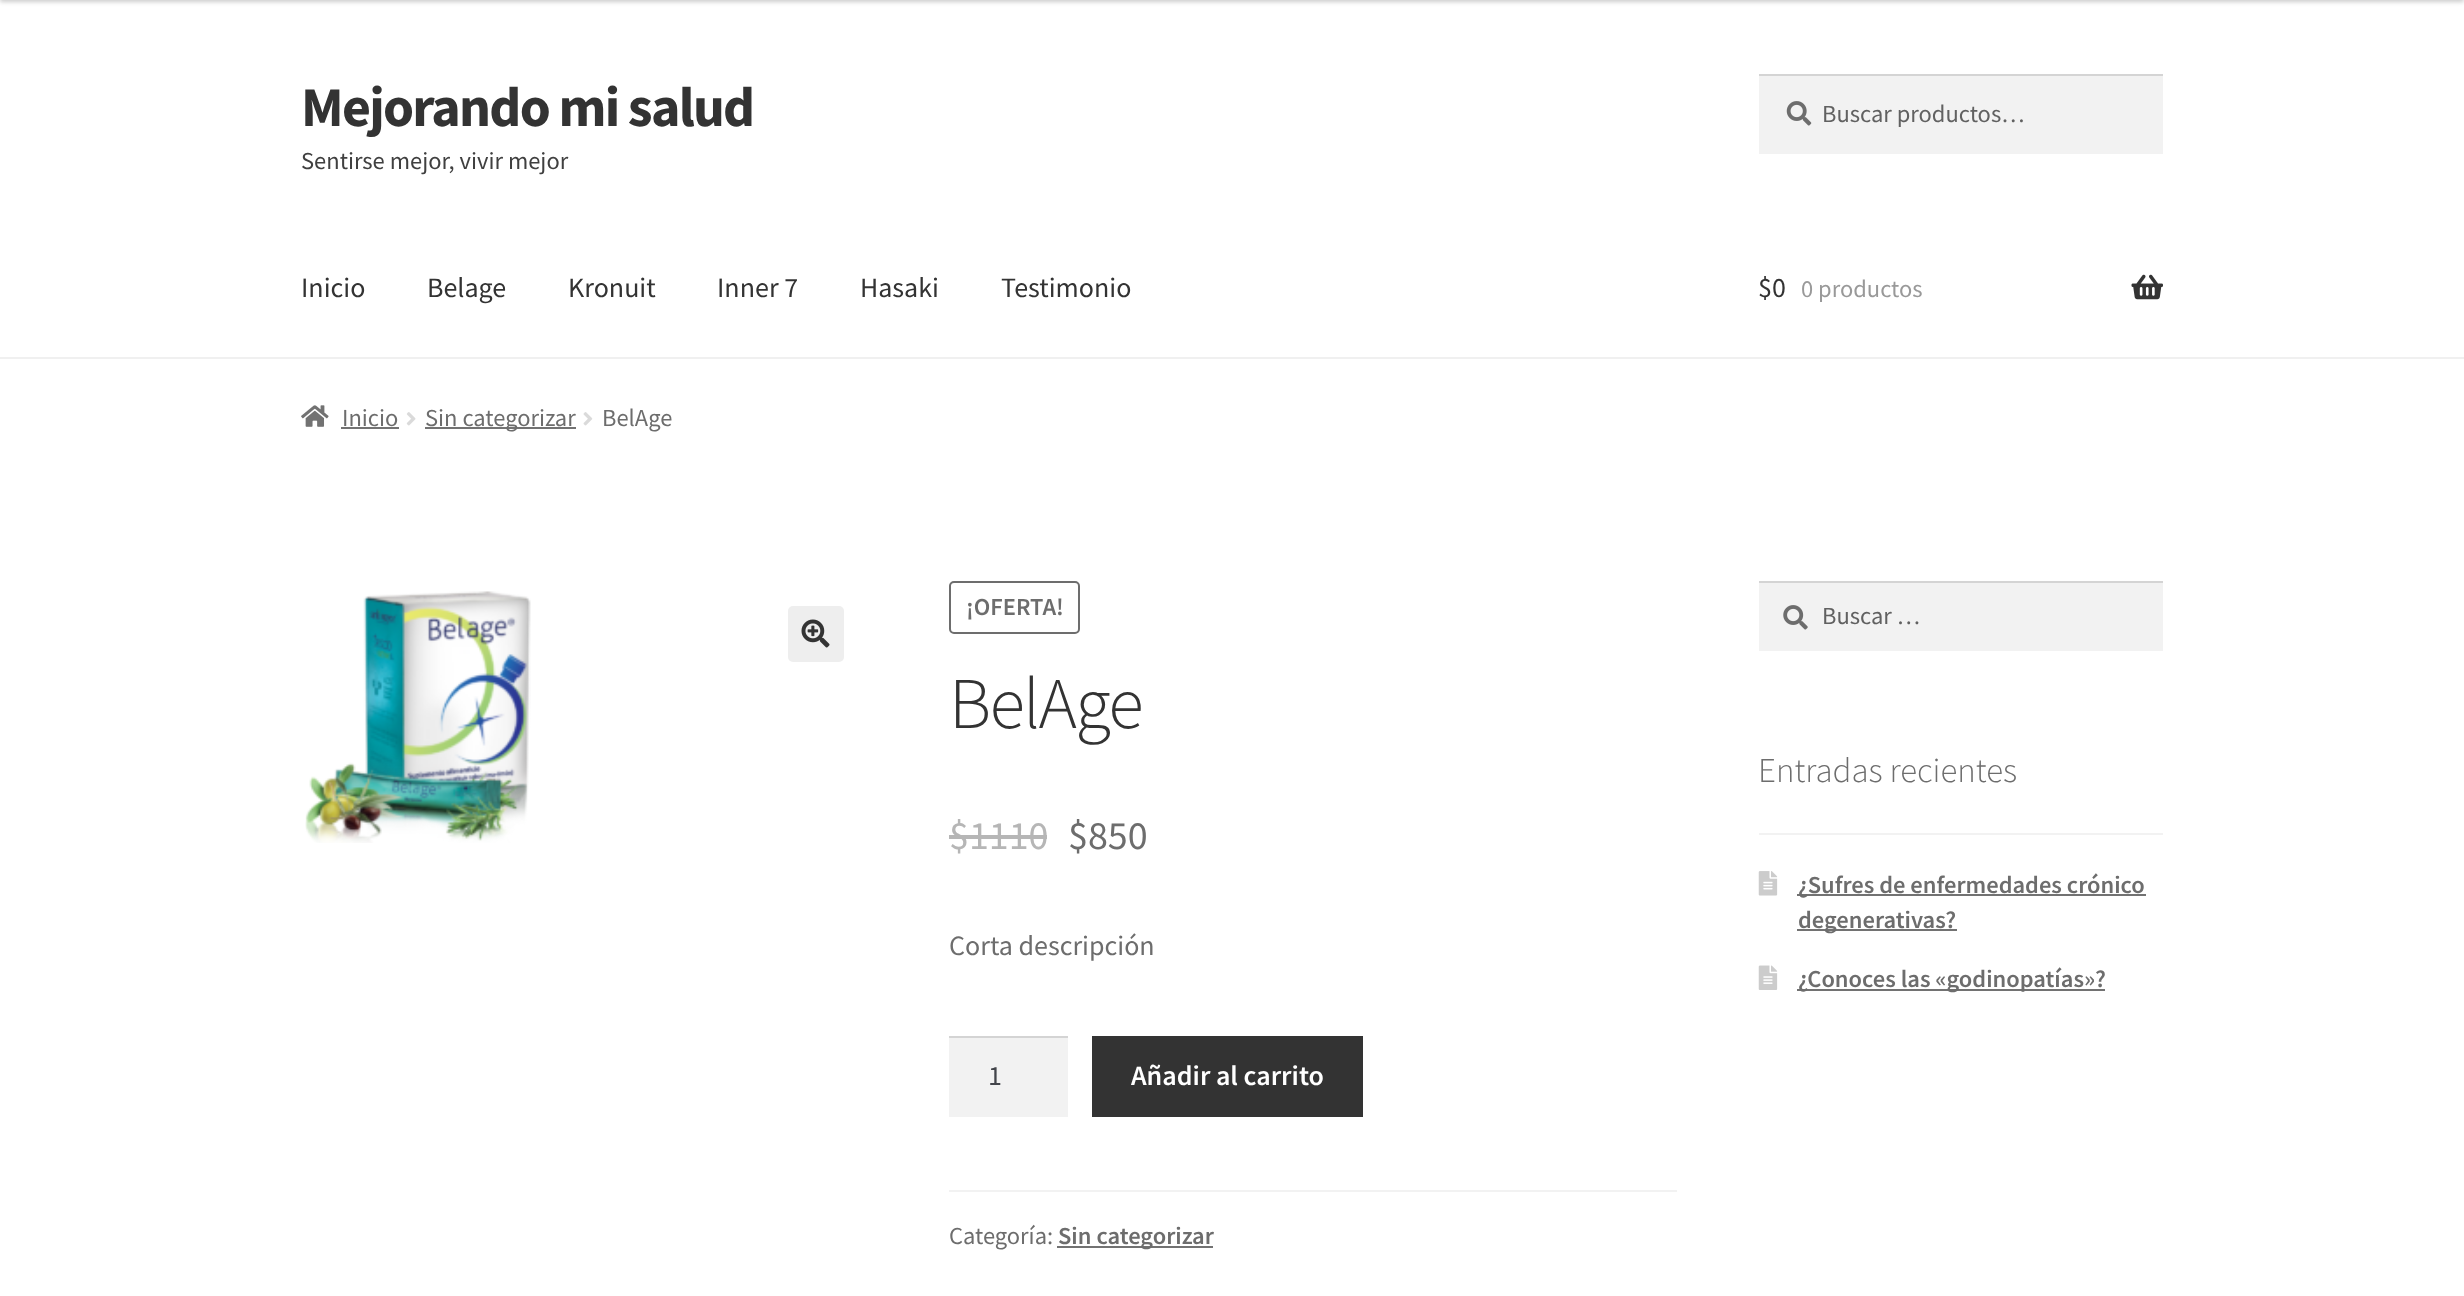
(async () => {
const canvas = document.querySelector("canvas")
canvas.width = 2464
canvas.height = 1296
const c = canvas.getContext("2d")
c.miterLimit = 4
c.fontKerning = "normal"
function T(s,x,y){c.fillText(s,x,y)}
function R(x,y,w,h){c.fillRect(x,y,w,h)}
function Q(x,y,w,h,r){c.beginPath();c.roundRect(x,y,w,h,r);c.fill()}
async function I(src,x,y,w,h){const img=new Image();img.src=src;await img.decode();c.drawImage(img,x,y,w,h)}
c.fillStyle="#fff"
R(0,0,2464,1296)
c.fillStyle="#00000033"
c.filter="blur(2px)"
c.beginPath()
c.rect(0,-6,2464,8)
c.fill()
c.filter="none"
c.fillStyle="#f0f0f0"
R(0,357,2464,2)
c.letterSpacing="-1.75px"
c.font="bold 56px Source Sans Pro"
c.fillStyle="#333"
T("Mejorando mi salud",301,126)
c.letterSpacing="0px"
c.font="24.5px Source Sans Pro"
c.fillStyle="#404040"
T("Sentirse mejor, vivir mejor",301,169)
c.fillStyle="#f2f2f2"
R(1759,76,404,78)
await I("1.png",1786,101,26,25)
c.fillStyle="#d4d4d4"
R(1759,74,404,2)
c.fillStyle="#616161"
T("Buscar productos…",1822,122)
c.font="28px Source Sans Pro"
c.fillStyle="#333"
T("Inicio",301,297)
T("Belage",427,297)
T("Kronuit",568,297)
T("Inner 7",717,297)
T("Hasaki",860,297)
T("Testimonio",1001,297)
T("$0",1758,297)
c.font="24.5px Source Sans Pro"
c.fillStyle="#999"
T("0 productos",1801,297)
await I("2.png",2131,274,32,26)
await I("3.png",301,405,28,22)
c.fillStyle="#6d6d6d"
T("Inicio",342,426)
c.fillStyle="#727272"
R(341,427,58,2)
await I("4.png",406,412,10,14)
R(425,427,151,2)
c.fillStyle="#6d6d6d"
T("Sin categorizar",425,426)
await I("5.png",583,412,10,14)
T("BelAge",602,426)
await I("6.png",305,591,226,252)
c.fillStyle="#eee"
Q(788,606,56,56,5)
await I("7.png",801,619,29,29)
c.beginPath()
c.roundRect(950,582,129,51,4)
c.strokeStyle="#6d6d6d"
c.lineWidth=2
c.stroke()
c.font="600 24.5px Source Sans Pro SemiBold"
c.fillStyle="#6d6d6d"
T("¡OFERTA!",966,615)
c.letterSpacing="-1.75px"
c.font="300 73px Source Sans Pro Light"
c.fillStyle="#333"
T("BelAge",949,728)
c.letterSpacing="0px"
c.font="40px Source Sans Pro"
c.fillStyle="#b6b6b6"
T("$1110",949,849)
R(949,835,98,4)
c.fillStyle="#6d6d6d"
T("$850",1068,849)
c.font="28px Source Sans Pro"
T("Corta descripción",949,955)
c.fillStyle="#f2f2f2"
R(949,1038,119,79)
c.fillStyle="#d4d4d4"
R(949,1036,119,2)
c.fillStyle="#43454b"
T("1",988,1085)
c.fillStyle="#333"
R(1092,1036,271,81)
c.font="600 28px Source Sans Pro SemiBold"
c.fillStyle="#fff"
T("Añadir al carrito",1131,1085)
c.fillStyle="#f2f2f2"
R(949,1190,728,2)
c.font="24.5px Source Sans Pro"
c.fillStyle="#6d6d6d"
T("Categoría:",949,1244)
c.fillStyle="#727272"
R(1057,1246,156,2)
c.font="600 24.5px Source Sans Pro SemiBold"
c.fillStyle="#6d6d6d"
T("Sin categorizar",1058,1244)
c.fillStyle="#f2f2f2"
R(1759,583,404,68)
await I("8.png",1783,605,25,25)
c.fillStyle="#d4d4d4"
R(1759,581,404,2)
c.font="24.5px Source Sans Pro"
c.fillStyle="#616161"
T("Buscar …",1822,624)
c.fillStyle="#f2f2f2"
R(1759,833,404,2)
c.font="300 34.75px Source Sans Pro Light"
c.fillStyle="#6d6d6d"
T("Entradas recientes",1758,782)
await I("9.png",1758,871,20,25)
c.fillStyle="#727272"
R(1797,894,349,2)
c.font="600 24.5px Source Sans Pro SemiBold"
c.fillStyle="#6d6d6d"
T("¿Sufres de enfermedades crónico",1798,893)
c.fillStyle="#727272"
R(1797,929,160,2)
c.fillStyle="#6d6d6d"
T("degenerativas?",1798,928)
await I("10.png",1758,965,20,25)
c.fillStyle="#727272"
R(1797,989,308,2)
c.fillStyle="#6d6d6d"
T("¿Conoces las «godinopatías»?",1798,987)
})()
